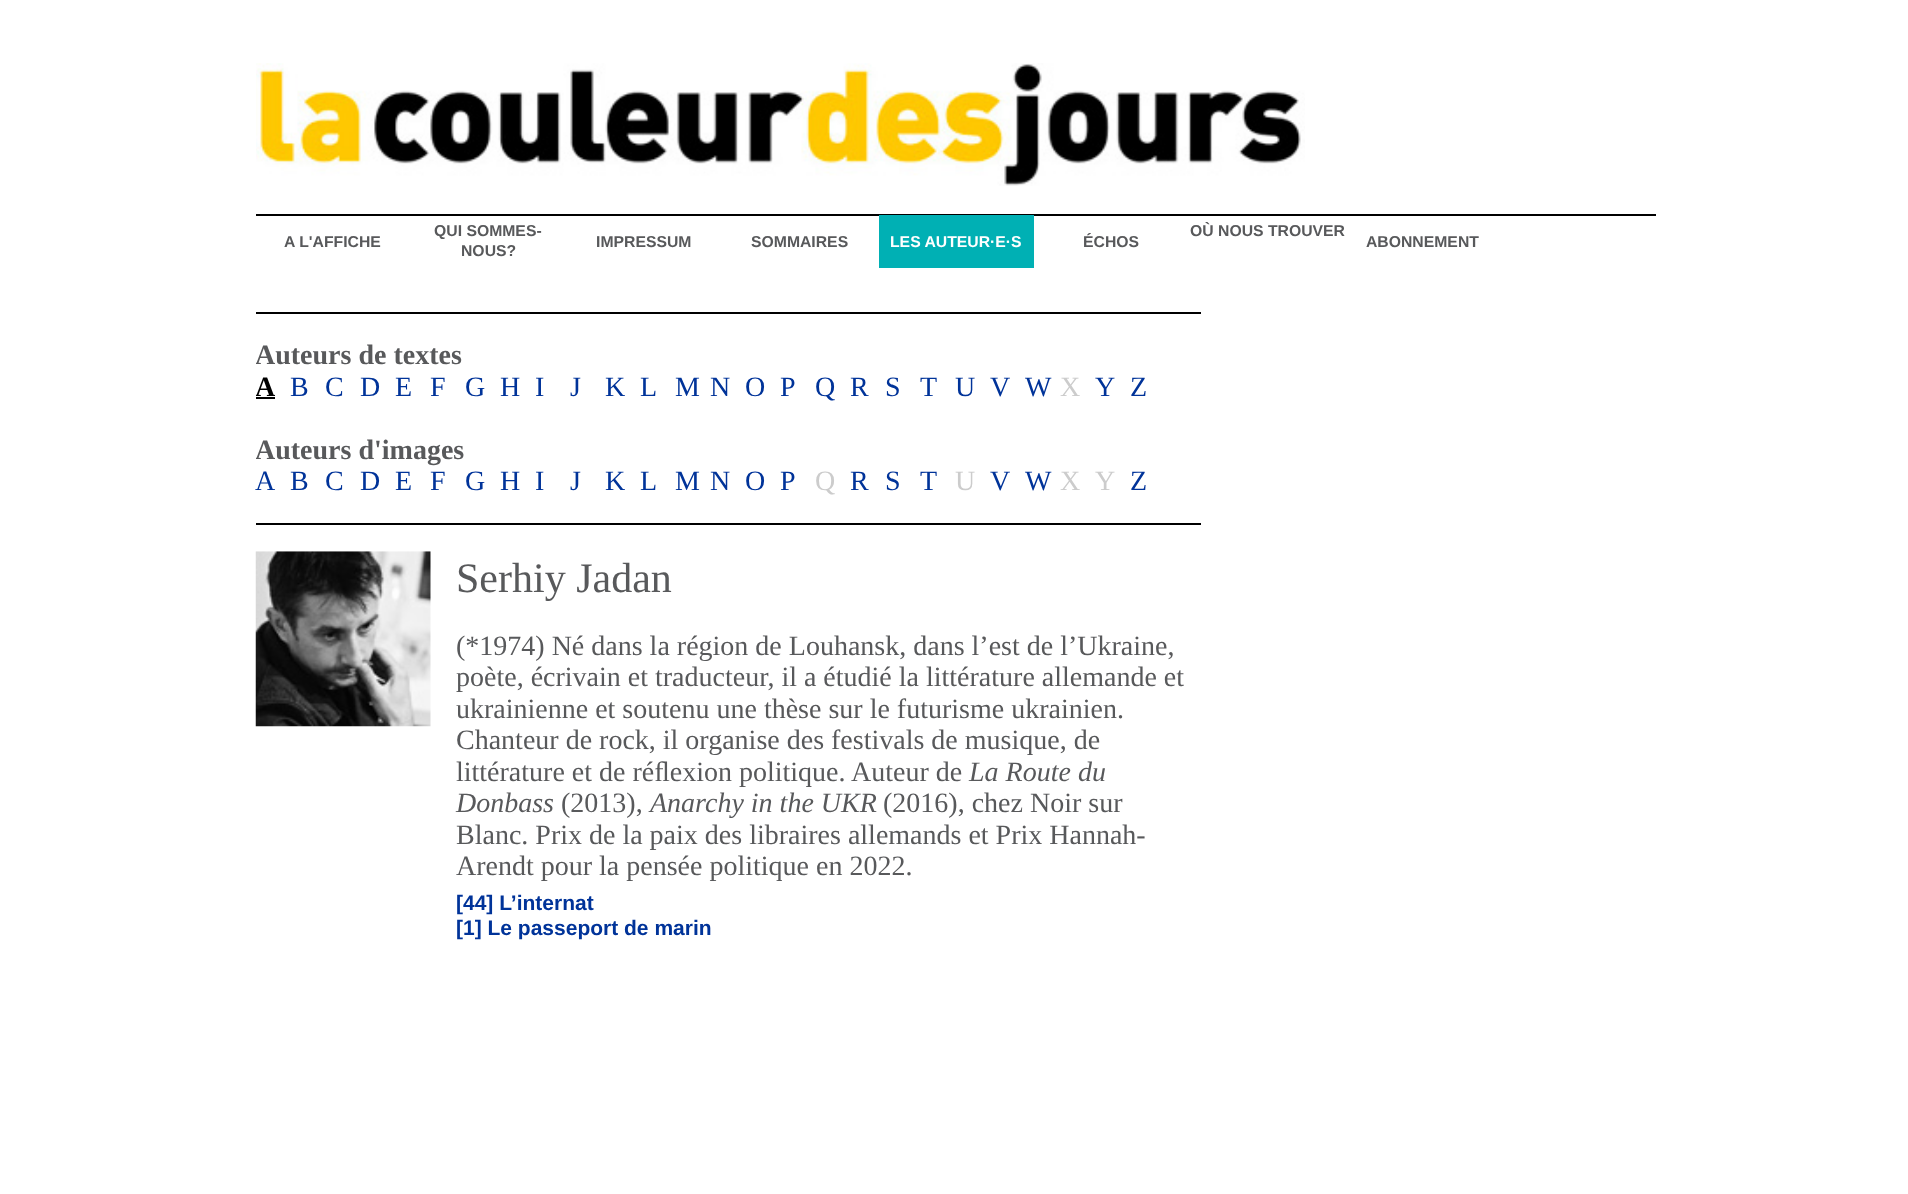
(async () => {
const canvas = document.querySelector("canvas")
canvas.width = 1908
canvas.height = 1194
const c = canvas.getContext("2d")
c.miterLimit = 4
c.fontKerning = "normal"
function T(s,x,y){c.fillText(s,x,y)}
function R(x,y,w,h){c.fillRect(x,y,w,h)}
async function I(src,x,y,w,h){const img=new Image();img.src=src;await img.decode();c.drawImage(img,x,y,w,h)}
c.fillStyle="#fff"
R(0,0,1908,1194)
c.fillStyle="#000"
R(256,214,1400,2)
await I("1.png",256,63,1049,123)
c.font="bold 15.75px Liberation Sans"
c.fillStyle="#58595b"
T("A L'AFFICHE",284,247)
T("QUI SOMMES-",434,236)
T("NOUS?",461,256)
T("IMPRESSUM",596,247)
T("SOMMAIRES",751,247)
c.fillStyle="#00b0b4"
R(879,215,155,53)
c.fillStyle="#fff"
T("LES AUTEUR·E·S",890,247)
c.fillStyle="#58595b"
T("ÉCHOS",1083,247)
T("OÙ NOUS TROUVER",1190,236)
T("ABONNEMENT",1366,247)
c.fillStyle="#000"
R(256,312,945,2)
R(256,523,945,2)
c.save()
c.beginPath()
c.rect(256,313,945,210)
c.clip()
c.font="bold 28px Liberation Serif"
c.fillStyle="#58595b"
T("Auteurs de textes",255,364)
c.restore()
c.save()
c.beginPath()
c.rect(256,371,945,32)
c.clip()
c.font="bold 28px Liberation Serif"
T("A",255,396)
c.restore()
R(256,397,19,2)
c.font="28px Liberation Serif"
c.fillStyle="#039"
T("B",290,396)
T("C",325,396)
T("D",360,396)
T("E",395,396)
T("F",430,396)
T("G",465,396)
T("H",500,396)
T("I",535,396)
T("J",570,396)
T("K",605,396)
T("L",640,396)
T("M",675,396)
T("N",710,396)
T("O",745,396)
T("P",780,396)
T("Q",815,396)
T("R",850,396)
T("S",885,396)
T("T",920,396)
T("U",955,396)
T("V",990,396)
T("W",1025,396)
c.fillStyle="#ccc"
T("X",1060,396)
c.fillStyle="#039"
T("Y",1095,396)
T("Z",1130,396)
c.save()
c.beginPath()
c.rect(256,313,945,210)
c.clip()
c.font="bold 28px Liberation Serif"
c.fillStyle="#58595b"
T("Auteurs d'images",255,459)
c.restore()
T("A",255,490)
T("B",290,490)
T("C",325,490)
T("D",360,490)
T("E",395,490)
T("F",430,490)
T("G",465,490)
T("H",500,490)
T("I",535,490)
T("J",570,490)
T("K",605,490)
T("L",640,490)
T("M",675,490)
T("N",710,490)
T("O",745,490)
T("P",780,490)
c.fillStyle="#ccc"
T("Q",815,490)
c.fillStyle="#039"
T("R",850,490)
T("S",885,490)
T("T",920,490)
c.fillStyle="#ccc"
T("U",955,490)
c.fillStyle="#039"
T("V",990,490)
T("W",1025,490)
c.fillStyle="#ccc"
T("X",1060,490)
T("Y",1095,490)
c.fillStyle="#039"
T("Z",1130,490)
await I("2.png",255,551,176,176)
c.font="42px Liberation Serif"
c.fillStyle="#58595b"
T("Serhiy Jadan",456,592)
c.font="28px Liberation Serif"
T("(*1974) Né dans la région de Louhansk, dans l’est de l’Ukraine,",456,655)
T("poète, écrivain et traducteur, il a étudié la littérature allemande et",456,686)
T("ukrainienne et soutenu une thèse sur le futurisme ukrainien.",456,718)
T("Chanteur de rock, il organise des festivals de musique, de",456,749)
T("littérature et de réﬂexion politique. Auteur de",456,781)
c.font="italic 28px Liberation Serif"
T("La Route du",969,781)
T("Donbass",456,812)
c.font="28px Liberation Serif"
T("(2013),",561,812)
c.font="italic 28px Liberation Serif"
T("Anarchy in the UKR",650,812)
c.font="28px Liberation Serif"
T("(2016), chez Noir sur",883,812)
T("Blanc. Prix de la paix des libraires allemands et Prix Hannah-",456,844)
T("Arendt pour la pensée politique en 2022.",456,875)
c.font="bold 21px Liberation Sans"
c.fillStyle="#039"
T("[44] L’internat",456,910)
T("[1] Le passeport de marin",456,935)
})()
